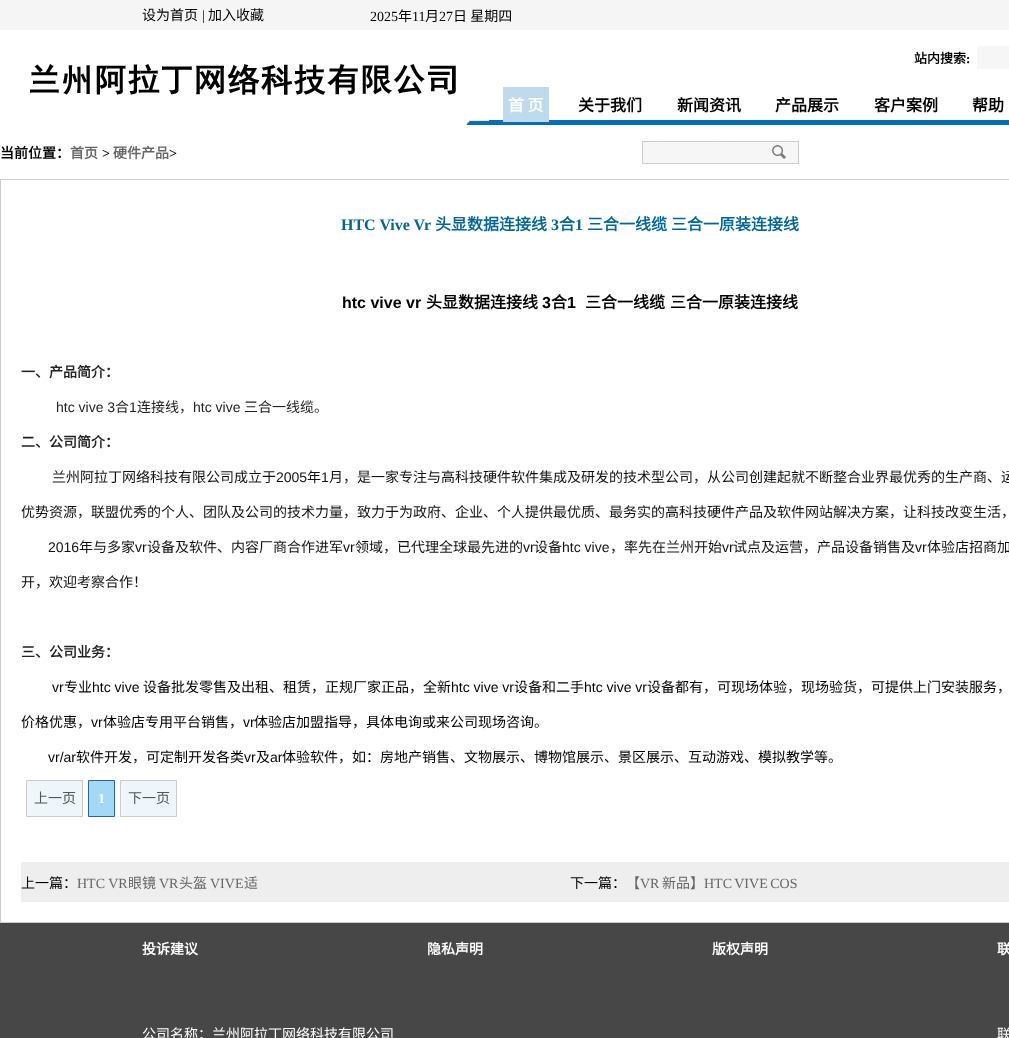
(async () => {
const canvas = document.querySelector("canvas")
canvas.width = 1009
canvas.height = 1038
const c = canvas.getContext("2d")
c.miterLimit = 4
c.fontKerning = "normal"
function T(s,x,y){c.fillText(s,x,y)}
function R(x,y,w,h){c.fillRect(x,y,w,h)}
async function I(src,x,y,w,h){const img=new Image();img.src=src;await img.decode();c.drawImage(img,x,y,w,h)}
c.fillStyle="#fff"
R(0,0,1009,1038)
c.fillStyle="#f5f5f5"
R(0,0,1009,30)
c.font="14px Noto Sans CJK SC"
c.fillStyle="#000"
T("设为首页",142,20)
c.font="14px Liberation Serif"
T("|",202,20)
c.font="14px Noto Sans CJK SC"
T("加入收藏",208,20)
c.font="14px Liberation Serif"
T("2025",370,21)
c.font="14px Noto Sans CJK SC"
T("年",398,21)
c.font="14px Liberation Serif"
T("11",412,21)
c.font="14px Noto Sans CJK SC"
T("月",425,21)
c.font="14px Liberation Serif"
T("27",439,21)
c.font="14px Noto Sans CJK SC"
T("日 星期四",453,21)
await I("1.png",30,64,459,61)
c.fillStyle="#036ebc"
R(489,120,520,5)
c.font="bold 13px Noto Sans CJK SC"
c.fillStyle="#000"
T("站内搜索",914,63)
c.font="bold 13px Liberation Serif"
T(":",966,63)
c.fillStyle="#f6f6f6"
R(977,46,32,23)
c.fillStyle="#c0daed"
R(503,87,46,35)
c.font="bold 16px Noto Sans CJK SC"
c.fillStyle="#fff"
T("首 页",508,111)
c.fillStyle="#000"
T("关于我们",578,111)
T("新闻资讯",677,111)
T("产品展示",775,111)
T("客户案例",874,111)
T("帮助",972,111)
c.font="bold 14px Noto Sans CJK SC"
T("当前位置：",0,158)
c.fillStyle="#666"
T("首页",70,158)
c.font="bold 14px Liberation Serif"
c.fillStyle="#000"
T(">",102,158)
c.font="bold 14px Noto Sans CJK SC"
c.fillStyle="#666"
T("硬件产品",113,158)
c.font="bold 14px Liberation Serif"
c.fillStyle="#000"
T(">",169,158)
await I("2.png",642,141,157,23)
c.strokeStyle="#ccc"
c.strokeRect(.5,179.5,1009,743)
c.font="bold 16px Liberation Serif"
c.fillStyle="#069"
T("HTC Vive Vr",341,230)
c.font="bold 16px Noto Sans CJK SC"
T("头显数据连接线",435,230)
c.font="bold 16px Liberation Serif"
T("3",551,230)
c.font="bold 16px Noto Sans CJK SC"
T("合",559,230)
c.font="bold 16px Liberation Serif"
T("1",575,230)
c.font="bold 16px Noto Sans CJK SC"
T("三合一线缆",587,230)
T("三合一原装连接线",671,230)
c.font="bold 16px Liberation Sans"
c.fillStyle="#000"
T("htc vive vr",342,308)
c.font="bold 16px Noto Sans CJK SC"
T("头显数据连接线",426,308)
c.font="bold 16px Liberation Sans"
T("3",542,308)
c.font="bold 16px Noto Sans CJK SC"
T("合",551,308)
c.font="bold 16px Liberation Sans"
T("1",567,308)
c.font="bold 16px Noto Sans CJK SC"
T("三合一线缆",585,308)
T("三合一原装连接线",670,308)
c.font="bold 14px Noto Sans CJK SC"
c.fillStyle="#222"
T("一、产品简介：",21,377)
c.font="14px Liberation Sans"
T("htc vive 3",56,412)
c.font="14px Noto Sans CJK SC"
T("合",115,412)
c.font="14px Liberation Sans"
T("1",129,412)
c.font="14px Noto Sans CJK SC"
T("连接线，",137,412)
c.font="14px Liberation Sans"
T("htc vive",193,412)
c.font="14px Noto Sans CJK SC"
T("三合一线缆。",244,412)
c.font="bold 14px Noto Sans CJK SC"
T("二、公司简介：",21,447)
c.font="14px Noto Sans CJK SC"
c.fillStyle="#111"
T("兰州阿拉丁网络科技有限公司成立于",52,482)
c.font="14px Liberation Sans"
T("2005",276,482)
c.font="14px Noto Sans CJK SC"
T("年",307,482)
c.font="14px Liberation Sans"
T("1",321,482)
c.font="14px Noto Sans CJK SC"
T("月，是一家专注与高科技硬件软件集成及研发的技术型公司，从公司创建起就不断整合业界最优秀的生产商、运",329,482)
T("优势资源，联盟优秀的个人、团队及公司的技术力量，致力于为政府、企业、个人提供最优质、最务实的高科技硬件产品及软件网站解决方案，让科技改变生活，",21,517)
c.font="14px Liberation Sans"
T("2016",48,552)
c.font="14px Noto Sans CJK SC"
T("年与多家",79,552)
c.font="14px Liberation Sans"
T("vr",135,552)
c.font="14px Noto Sans CJK SC"
T("设备及软件、内容厂商合作进军",147,552)
c.font="14px Liberation Sans"
T("vr",343,552)
c.font="14px Noto Sans CJK SC"
T("领域，已代理全球最先进的",355,552)
c.font="14px Liberation Sans"
T("vr",523,552)
c.font="14px Noto Sans CJK SC"
T("设备",534,552)
c.font="14px Liberation Sans"
T("htc vive",562,552)
c.font="14px Noto Sans CJK SC"
T("，率先在兰州开始",610,552)
c.font="14px Liberation Sans"
T("vr",722,552)
c.font="14px Noto Sans CJK SC"
T("试点及运营，产品设备销售及",733,552)
c.font="14px Liberation Sans"
T("vr",915,552)
c.font="14px Noto Sans CJK SC"
T("体验店招商加",927,552)
T("开，欢迎考察合作！",21,587)
c.font="bold 14px Noto Sans CJK SC"
c.fillStyle="#222"
T("三、公司业务：",21,657)
c.font="14px Liberation Sans"
c.fillStyle="#000"
T("vr",52,692)
c.font="14px Noto Sans CJK SC"
T("专业",64,692)
c.font="14px Liberation Sans"
T("htc vive",92,692)
c.font="14px Noto Sans CJK SC"
T("设备批发零售及出租、租赁，正规厂家正品，全新",143,692)
c.font="14px Liberation Sans"
T("htc vive vr",451,692)
c.font="14px Noto Sans CJK SC"
T("设备和二手",514,692)
c.font="14px Liberation Sans"
T("htc vive vr",584,692)
c.font="14px Noto Sans CJK SC"
T("设备都有，可现场体验，现场验货，可提供上门安装服务，",647,692)
T("价格优惠，",21,727)
c.font="14px Liberation Sans"
T("vr",91,727)
c.font="14px Noto Sans CJK SC"
T("体验店专用平台销售，",103,727)
c.font="14px Liberation Sans"
T("vr",243,727)
c.font="14px Noto Sans CJK SC"
T("体验店加盟指导，具体电询或来公司现场咨询。",254,727)
c.font="14px Liberation Sans"
T("vr/ar",48,762)
c.font="14px Noto Sans CJK SC"
T("软件开发，可定制开发各类",76,762)
c.font="14px Liberation Sans"
T("vr",244,762)
c.font="14px Noto Sans CJK SC"
T("及",256,762)
c.font="14px Liberation Sans"
T("ar",270,762)
c.font="14px Noto Sans CJK SC"
T("体验软件，如：房地产销售、文物展示、博物馆展示、景区展示、互动游戏、模拟教学等。",282,762)
c.fillStyle="#eff6fb"
c.beginPath()
c.rect(26.5,780.5,56,36)
c.fill()
c.strokeStyle="#cbcbcb"
c.stroke()
c.fillStyle="#555"
T("上一页",34,803)
c.fillStyle="#a3d8f7"
c.beginPath()
c.rect(88.5,780.5,26,36)
c.fill()
c.strokeStyle="#2f5fa1"
c.stroke()
c.font="bold 14px Liberation Serif"
c.fillStyle="#fff"
T("1",98,803)
c.fillStyle="#eff6fb"
c.beginPath()
c.rect(120.5,780.5,56,36)
c.fill()
c.strokeStyle="#cbcbcb"
c.stroke()
c.font="14px Noto Sans CJK SC"
c.fillStyle="#555"
T("下一页",128,803)
c.fillStyle="#eee"
R(21,862,988,40)
c.fillStyle="#000"
T("上一篇：",21,888)
c.font="14px Liberation Serif"
c.fillStyle="#666"
T("HTC VR",77,888)
c.font="14px Noto Sans CJK SC"
T("眼镜",128,888)
c.font="14px Liberation Serif"
T("VR",159,888)
c.font="14px Noto Sans CJK SC"
T("头盔",179,888)
c.font="14px Liberation Serif"
T("VIVE",210,888)
c.font="14px Noto Sans CJK SC"
T("适",244,888)
c.fillStyle="#000"
T("下一篇：",570,888)
c.fillStyle="#666"
T("【",626,888)
c.font="14px Liberation Serif"
T("VR",640,888)
c.font="14px Noto Sans CJK SC"
T("新品】",662,888)
c.wordSpacing="-1px"
c.font="14px Liberation Serif"
T("HTC VIVE COS",704,888)
c.fillStyle="#474747"
R(0,923,1009,115)
c.wordSpacing="0px"
c.font="bold 14px Noto Sans CJK SC"
c.fillStyle="#fff"
T("投诉建议",142,954)
T("隐私声明",427,954)
T("版权声明",712,954)
T("联",997,954)
c.font="14px Noto Sans CJK SC"
T("公司名称：兰州阿拉丁网络科技有限公司",142,1039)
T("联",997,1039)
})()
